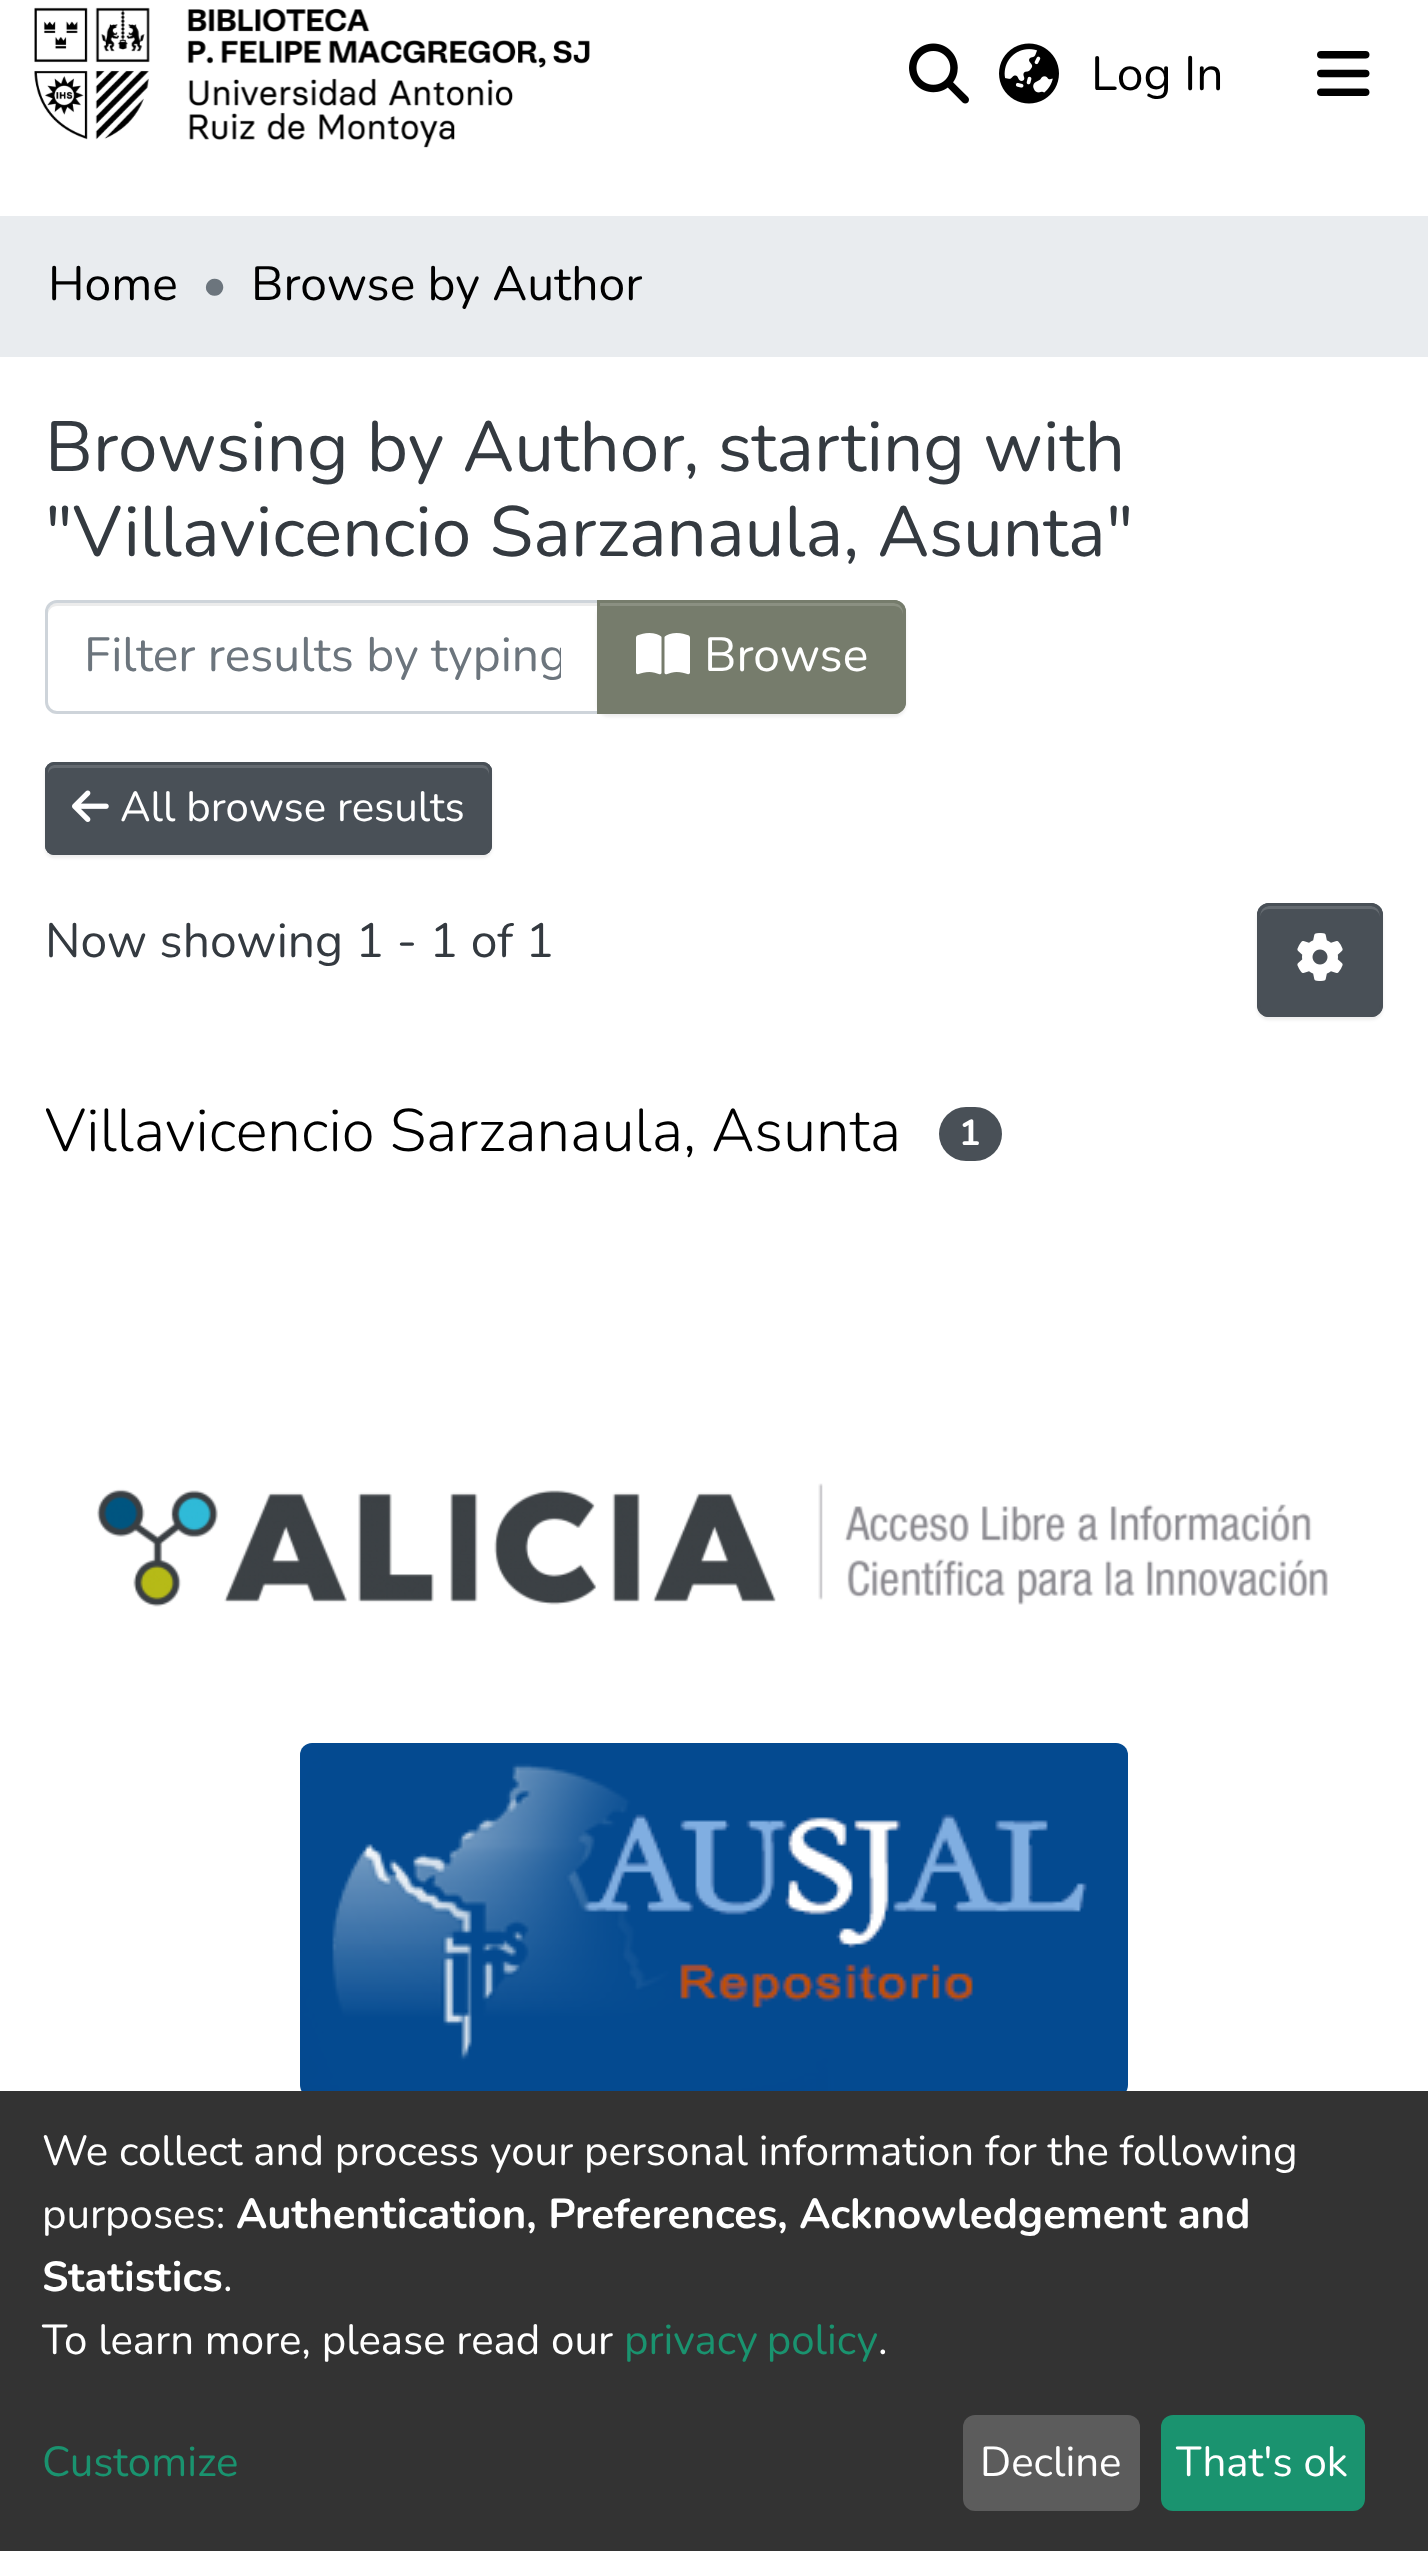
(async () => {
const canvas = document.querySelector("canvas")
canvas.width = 1428
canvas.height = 2551
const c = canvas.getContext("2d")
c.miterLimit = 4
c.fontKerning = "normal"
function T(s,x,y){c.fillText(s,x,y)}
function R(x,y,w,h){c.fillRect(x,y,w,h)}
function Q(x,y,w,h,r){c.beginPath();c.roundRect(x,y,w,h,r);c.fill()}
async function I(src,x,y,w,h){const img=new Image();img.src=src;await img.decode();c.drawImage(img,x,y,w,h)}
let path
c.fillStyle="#fff"
R(0,0,1428,2551)
await I("1.png",34,7,556,141)
await I("2.png",909,43,60,61)
await I("3.png",999,43,60,61)
c.font="48px Nunito"
c.fillStyle="#000"
T("Log In",1091,90)
await I("4.png",1317,51,53,45)
c.fillStyle="#e9ecef"
R(0,216,1428,141)
c.fillStyle="#000"
T("Home",48,300)
c.fillStyle="#6c757d"
T("•",202,300)
c.fillStyle="#000"
T("Browse by Author",251,300)
c.font="71px Nunito"
c.fillStyle="#343a40"
T("Browsing by Author, starting with",45,471)
T("\"Villavicencio Sarzanaula, Asunta\"",45,556)
c.fillStyle="#ececec"
path = new Path2D("M57 606h540v-3h-540c-5 0-9 4-9 9v3c0-5 4-9 9-9z")
c.fill(path)
c.beginPath()
c.roundRect(46.5,601.5,552,111,[10.5,0,0,10.5])
c.strokeStyle="#ced4da"
c.lineWidth=3
c.stroke()
c.save()
c.beginPath()
c.rect(84,624,477,66)
c.clip()
c.font="48px Nunito"
c.fillStyle="#6c757d"
T("Filter results by typing",84,671)
c.restore()
c.fillStyle="#00000012"
c.filter="blur(1.5px)"
c.beginPath()
c.roundRect(597,603,309,114,12)
c.fill()
c.filter="none"
c.fillStyle="#767c6c"
c.beginPath()
c.roundRect(597,600,309,114,[0,12,12,0])
c.fill()
c.fillStyle="#8b9082"
path = new Path2D("M600 606h294c5 0 9 4 9 9v-3c0-5-4-9-9-9h-294z")
c.fill(path)
c.beginPath()
c.roundRect(598.5,601.5,306,111,[0,10.5,10.5,0])
c.strokeStyle="#767c6c"
c.stroke()
await I("5.png",636,633,54,42)
c.font="48px Nunito"
c.fillStyle="#fff"
T("Browse",704,671)
c.fillStyle="#00000012"
c.filter="blur(1.5px)"
c.beginPath()
c.roundRect(45,765,447,93,9)
c.fill()
c.filter="none"
c.fillStyle="#495057"
Q(45,762,447,93,9)
c.fillStyle="#646a70"
path = new Path2D("M55 768h427c4 0 7 3 7 7v-4c0-3-3-6-6-6h-429c-3 0-6 3-6 6v4c0-4 3-7 7-7z")
c.fill(path)
c.beginPath()
c.roundRect(46.5,763.5,444,90,7.5)
c.strokeStyle="#495057"
c.stroke()
await I("6.png",72,790,37,32)
c.font="42px Nunito"
c.fillStyle="#fff"
T("All browse results",120,821)
c.font="48px Nunito"
c.fillStyle="#343a40"
T("Now showing 1 - 1 of 1",45,957)
c.fillStyle="#00000012"
c.filter="blur(1.5px)"
c.beginPath()
c.roundRect(1257,906,126,114,12)
c.fill()
c.filter="none"
c.fillStyle="#495057"
Q(1257,903,126,114,12)
c.fillStyle="#646a70"
path = new Path2D("M1269 909h102c5 0 9 4 9 9c0-16-13-12-26-12h-68c-13 0-26-4-26 12c0-5 4-9 9-9z")
c.fill(path)
c.beginPath()
c.roundRect(1258.5,904.5,123,111,10.5)
c.stroke()
await I("7.png",1297,933,46,48)
c.font="300 60px Nunito"
c.fillStyle="#000"
T("Villavicencio Sarzanaula, Asunta",45,1151)
c.fillStyle="#495057"
Q(939,1107,63,54,27)
c.font="bold 36px Nunito"
c.fillStyle="#fff"
T("1",959,1145)
await I("8.png",97,1483,1231,124)
await I("9.png",300,1743,828,348)
c.fillStyle="#333"
R(0,2091,1428,460)
c.font="42px Nunito"
c.fillStyle="#fff"
T("We collect and process your personal information for the following",42,2165)
T("purposes:",42,2228)
c.font="bold 42px Nunito"
T("Authentication, Preferences, Acknowledgement and",236,2228)
T("Statistics",42,2291)
c.font="42px Nunito"
T(".",223,2291)
T("To learn more, please read our",42,2354)
c.wordSpacing="-2px"
c.fillStyle="#1a936f"
T("privacy policy",624,2354)
c.wordSpacing="0px"
c.fillStyle="#fff"
T(".",878,2354)
c.fillStyle="#1a936f"
T("Customize",42,2476)
c.fillStyle="#5c5c5c"
Q(963,2415,177,96,12)
c.fillStyle="#fff"
T("Decline",980,2476)
c.fillStyle="#1a936f"
Q(1161,2415,204,96,12)
c.fillStyle="#fff"
T("That's ok",1176,2476)
})()
